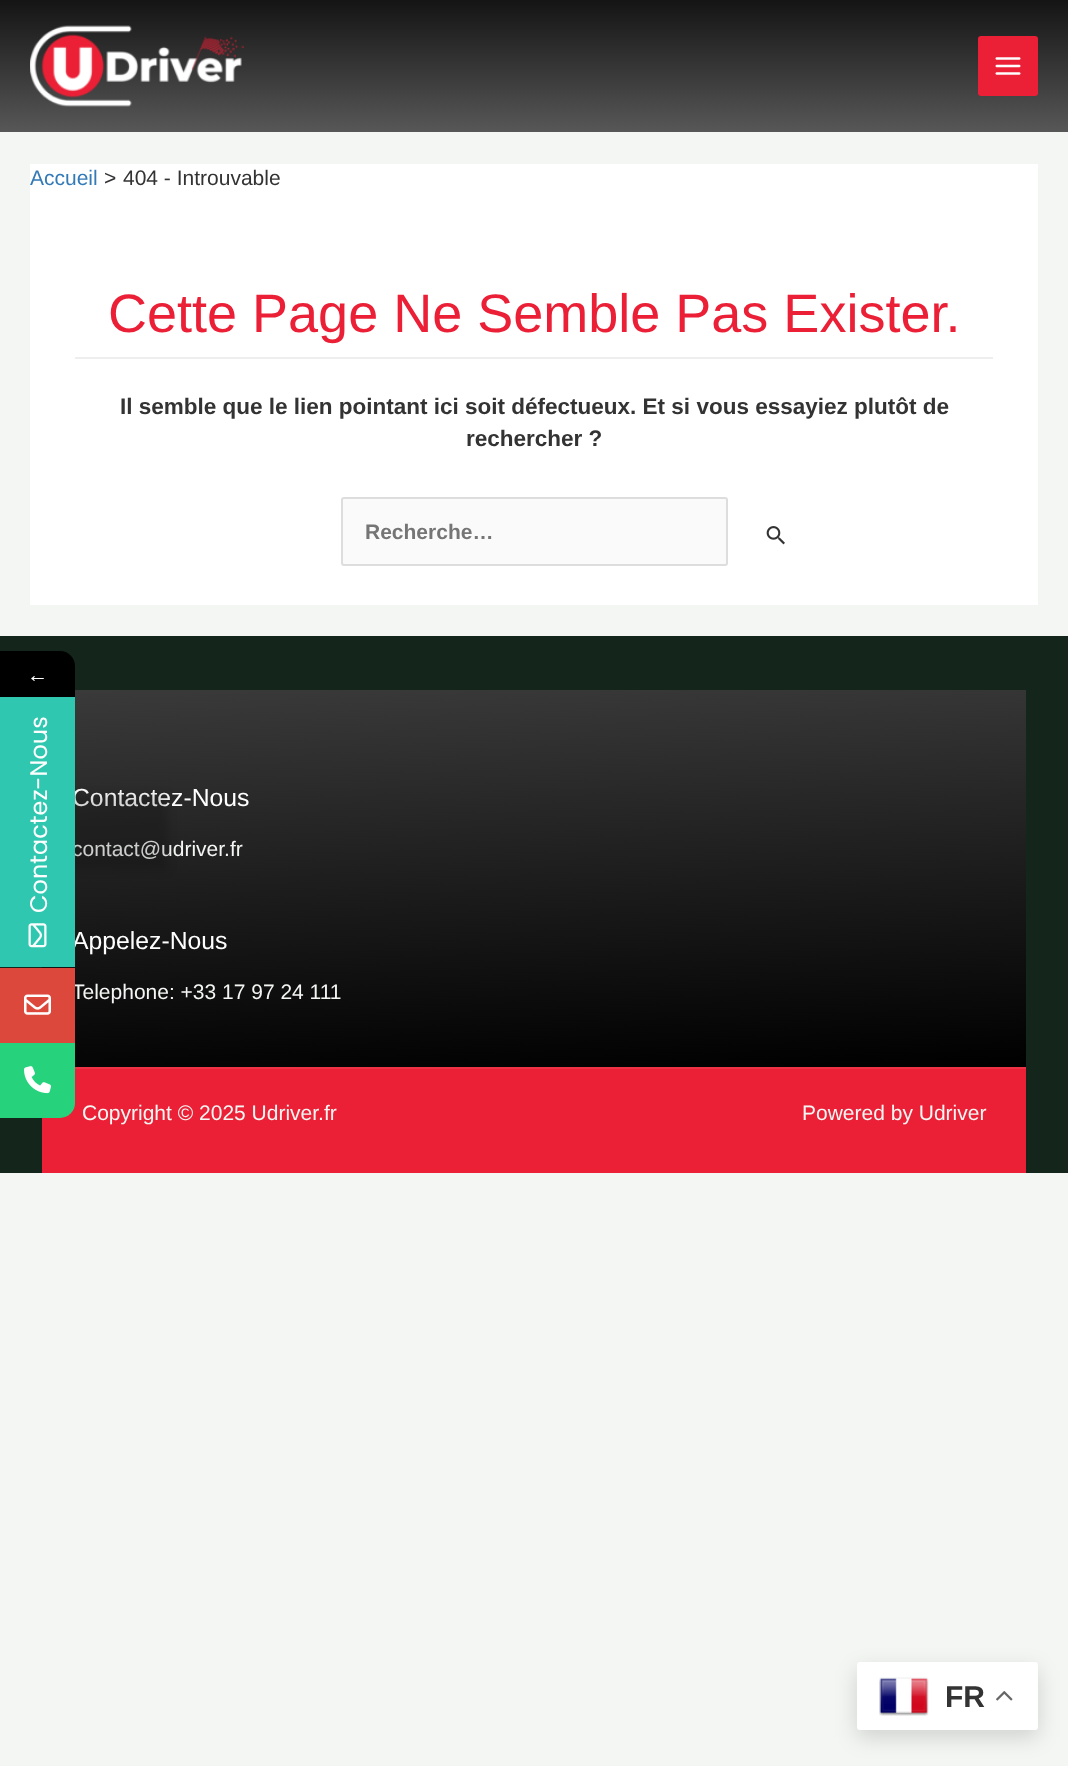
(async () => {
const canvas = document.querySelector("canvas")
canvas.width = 1068
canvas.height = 1766
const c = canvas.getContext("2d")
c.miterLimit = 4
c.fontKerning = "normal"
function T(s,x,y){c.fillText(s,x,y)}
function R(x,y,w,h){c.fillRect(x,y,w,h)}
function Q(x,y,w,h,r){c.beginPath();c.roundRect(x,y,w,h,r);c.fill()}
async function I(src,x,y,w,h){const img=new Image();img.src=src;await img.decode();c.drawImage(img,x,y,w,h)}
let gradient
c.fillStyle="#f3f6f3"
R(0,0,1068,1766)
gradient = c.createLinearGradient(534,0,534,132)
gradient.addColorStop(0,"#141414")
gradient.addColorStop(1,"#575757")
c.fillStyle = gradient
R(0,0,1068,132)
await I("1.png",30,25,215,82)
c.fillStyle="#eb2036"
Q(978,36,60,60,3)
await I("2.png",995,57,26,18)
c.fillStyle="#fff"
R(30,164,1008,441)
c.font="21px Liberation Sans"
c.fillStyle="#337ab7"
T("Accueil",30,185)
c.fillStyle="#333"
T(">",104,185)
T("404 - Introuvable",123,185)
c.fillStyle="#eee"
R(75,357,918,2)
c.font="54px Liberation Sans"
c.fillStyle="#eb2036"
T("Cette Page Ne Semble Pas Exister.",108,332)
c.font="bold 22.5px Liberation Sans"
c.fillStyle="#333"
T("Il semble que le lien pointant ici soit défectueux. Et si vous essayiez plutôt de",120,414)
T("rechercher ?",466,446)
c.fillStyle="#fafafa"
c.beginPath()
c.roundRect(342,498,385,67,2)
c.fill()
c.strokeStyle="#ddd"
c.lineWidth=2
c.stroke()
c.font="bold 21px Liberation Sans"
c.fillStyle="#757575"
T("Recherche…",365,539)
await I("3.png",766,526,19,19)
c.fillStyle="#14261c"
R(0,636,1068,537)
gradient = c.createLinearGradient(541,1083,527,673)
gradient.addColorStop(0,"#000")
gradient.addColorStop(1,"#3a3a3a")
c.fillStyle = gradient
R(42,690,984,377)
c.font="24.75px Liberation Sans"
c.fillStyle="#fff"
T("Contactez-Nous",72,806)
c.font="21px Liberation Sans"
c.fillStyle="#f3f6f3"
T("contact@udriver.fr",72,856)
c.font="24.75px Liberation Sans"
c.fillStyle="#fff"
T("Appelez-Nous",72,949)
c.font="21px Liberation Sans"
c.fillStyle="#f3f6f3"
T("Telephone: +33 17 97 24 111",72,999)
c.fillStyle="#eb2036"
R(42,1069,984,104)
c.fillStyle="#ed3246"
R(75,1067,951,2)
c.fillStyle="#f3f6f3"
T("Copyright © 2025 Udriver.fr",82,1120)
T("Powered by Udriver",802,1120)
c.fillStyle="#000"
c.beginPath()
c.roundRect(0,651,75,48,[0,15,0,0])
c.fill()
c.font="21px Liberation Serif"
c.fillStyle="#fff"
T("←",27,682)
c.fillStyle="#00000029"
c.filter="blur(4.5px)"
c.beginPath()
c.rect(-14,795,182,75)
c.fill()
c.filter="none"
c.fillStyle="#30c7b0"
R(0,697,75,270)
c.font="24px Poppins"
c.fillStyle="#fff"
c.save()
c.translate(47,913)
c.rotate(-90 * Math.PI / 180)
c.fillText("Contactez-Nous",0,0)
c.restore()
await I("4.png",28,923,19,25)
c.fillStyle="#dc483c"
R(0,968,75,75)
await I("5.png",24,994,27,21)
c.fillStyle="#26d37c"
c.beginPath()
c.roundRect(0,1043,75,75,[0,0,15,0])
c.fill()
await I("6.png",24,1066,27,28)
c.fillStyle="#00000026"
c.filter="blur(11px)"
c.beginPath()
c.roundRect(857,1670,181,67,3)
c.fill()
c.filter="none"
c.fillStyle="#fff"
Q(857,1662,181,68,3)
await I("7.png",879,1677,50,39)
c.font="bold 30px Liberation Sans"
c.fillStyle="#333"
T("FR",945,1707)
await I("8.png",996,1691,17,10)
})()
